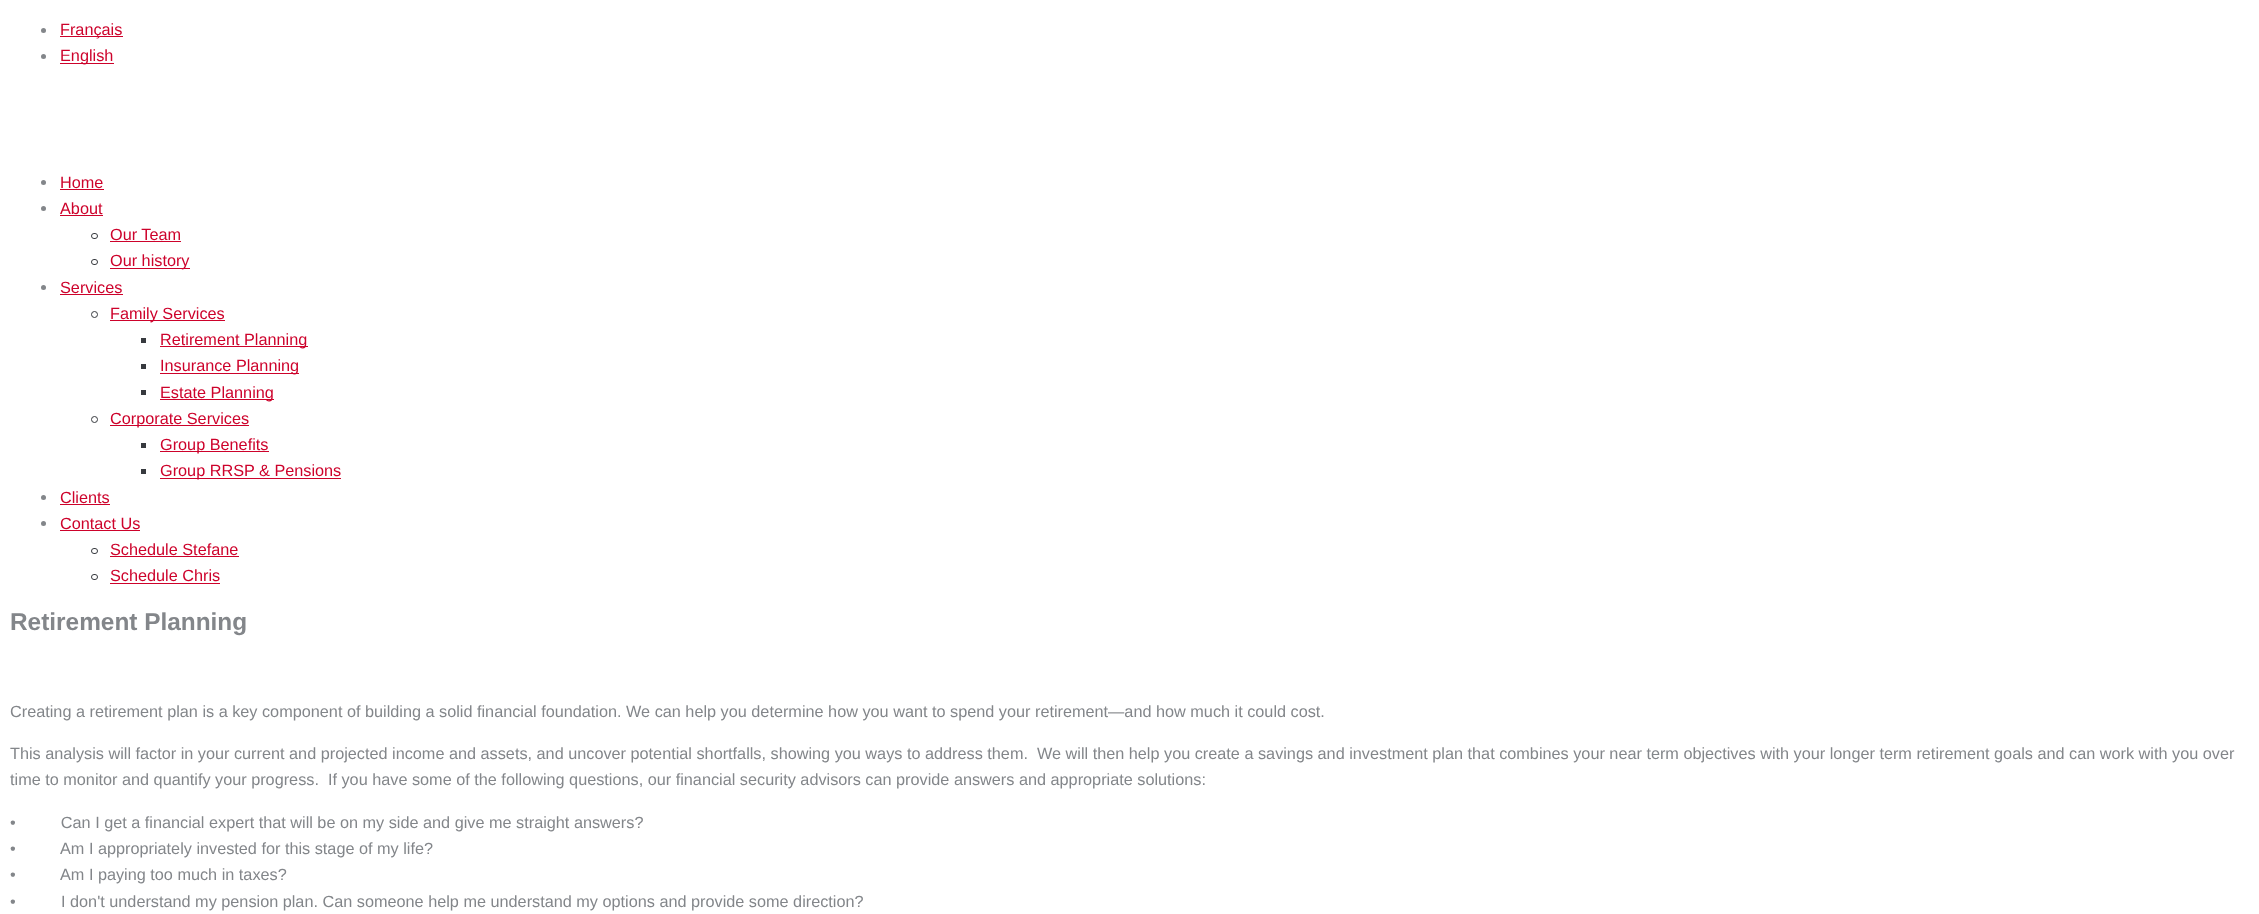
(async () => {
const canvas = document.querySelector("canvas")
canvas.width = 2259
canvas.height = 914
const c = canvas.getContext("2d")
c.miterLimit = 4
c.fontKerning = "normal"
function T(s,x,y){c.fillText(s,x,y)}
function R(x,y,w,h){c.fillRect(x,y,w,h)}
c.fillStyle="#fff"
R(0,0,2259,914)
c.fillStyle="#83868a"
c.beginPath()
c.arc(43.5,30.5,2.5,0,7)
c.fill()
c.fillStyle="#cd022b"
R(60,36,63,1)
c.font="16.25px Liberation Sans"
T("Français",60,35)
c.fillStyle="#83868a"
c.beginPath()
c.arc(43.5,56.5,2.5,0,7)
c.fill()
c.fillStyle="#cd022b"
R(60,63,54,1)
T("English",60,61)
c.fillStyle="#83868a"
c.beginPath()
c.arc(43.5,182.5,2.5,0,7)
c.fill()
c.fillStyle="#cd022b"
T("Home",60,188)
R(60,189,44,1)
c.fillStyle="#83868a"
c.beginPath()
c.arc(43.5,208.5,2.5,0,7)
c.fill()
c.fillStyle="#cd022b"
T("About",60,214)
R(60,215,43,1)
c.beginPath()
c.roundRect(91.5,233.5,6,5,2.5)
c.strokeStyle="#373a3f"
c.stroke()
T("Our Team",110,240)
R(110,241,71,1)
c.beginPath()
c.roundRect(91.5,259.5,6,5,2.5)
c.stroke()
R(110,268,80,1)
T("Our history",110,266)
c.fillStyle="#83868a"
c.beginPath()
c.arc(43.5,287.5,2.5,0,7)
c.fill()
c.fillStyle="#cd022b"
T("Services",60,293)
R(60,294,63,1)
c.beginPath()
c.arc(94.5,314.5,3,0,7)
c.stroke()
R(110,320,115,1)
T("Family Services",110,319)
c.fillStyle="#373a3f"
R(141,338,5,5)
c.fillStyle="#cd022b"
R(160,346,148,1)
T("Retirement Planning",160,345)
c.fillStyle="#373a3f"
R(141,364,5,5)
c.fillStyle="#cd022b"
R(160,373,139,1)
T("Insurance Planning",160,371)
c.fillStyle="#373a3f"
R(141,390,5,5)
c.fillStyle="#cd022b"
R(160,399,114,1)
T("Estate Planning",160,398)
c.beginPath()
c.arc(94.5,419.5,3,0,7)
c.stroke()
R(110,425,139,1)
T("Corporate Services",110,424)
c.fillStyle="#373a3f"
R(141,443,5,5)
c.fillStyle="#cd022b"
R(160,451,109,1)
T("Group Benefits",160,450)
c.fillStyle="#373a3f"
R(141,469,5,5)
c.fillStyle="#cd022b"
R(160,478,181,1)
T("Group RRSP & Pensions",160,476)
c.fillStyle="#83868a"
c.beginPath()
c.arc(43.5,497.5,2.5,0,7)
c.fill()
c.fillStyle="#cd022b"
T("Clients",60,503)
R(60,504,50,1)
c.fillStyle="#83868a"
c.beginPath()
c.arc(43.5,523.5,2.5,0,7)
c.fill()
c.fillStyle="#cd022b"
T("Contact Us",60,529)
R(60,530,80,1)
c.beginPath()
c.roundRect(91.5,548.5,6,5,2.5)
c.stroke()
T("Schedule Stefane",110,555)
R(110,556,129,1)
c.beginPath()
c.roundRect(91.5,574.5,6,5,2.5)
c.stroke()
T("Schedule Chris",110,581)
R(110,583,110,1)
c.font="bold 24.4px Liberation Sans"
c.fillStyle="#83868a"
T("Retirement Planning",10,630)
c.font="16.25px Liberation Sans"
T("Creating a retirement plan is a key component of building a solid financial foundation. We can help you determine how you want to spend your retirement—and how much it could cost.",10,717)
T("This analysis will factor in your current and projected income and assets, and uncover potential shortfalls, showing you ways to address them.  We will then help you create a savings and investment plan that combines your near term objectives with your longer term retirement goals and can work with you over",10,759)
T("time to monitor and quantify your progress.  If you have some of the following questions, our financial security advisors can provide answers and appropriate solutions:",10,785)
T("•          Can I get a financial expert that will be on my side and give me straight answers?",10,828)
T("•",10,854)
T("Am I appropriately invested for this stage of my life?",60,854)
T("•",10,880)
T("Am I paying too much in taxes?",60,880)
T("•",10,907)
T("I don't understand my pension plan. Can someone help me understand my options and provide some direction?",61,907)
})()
